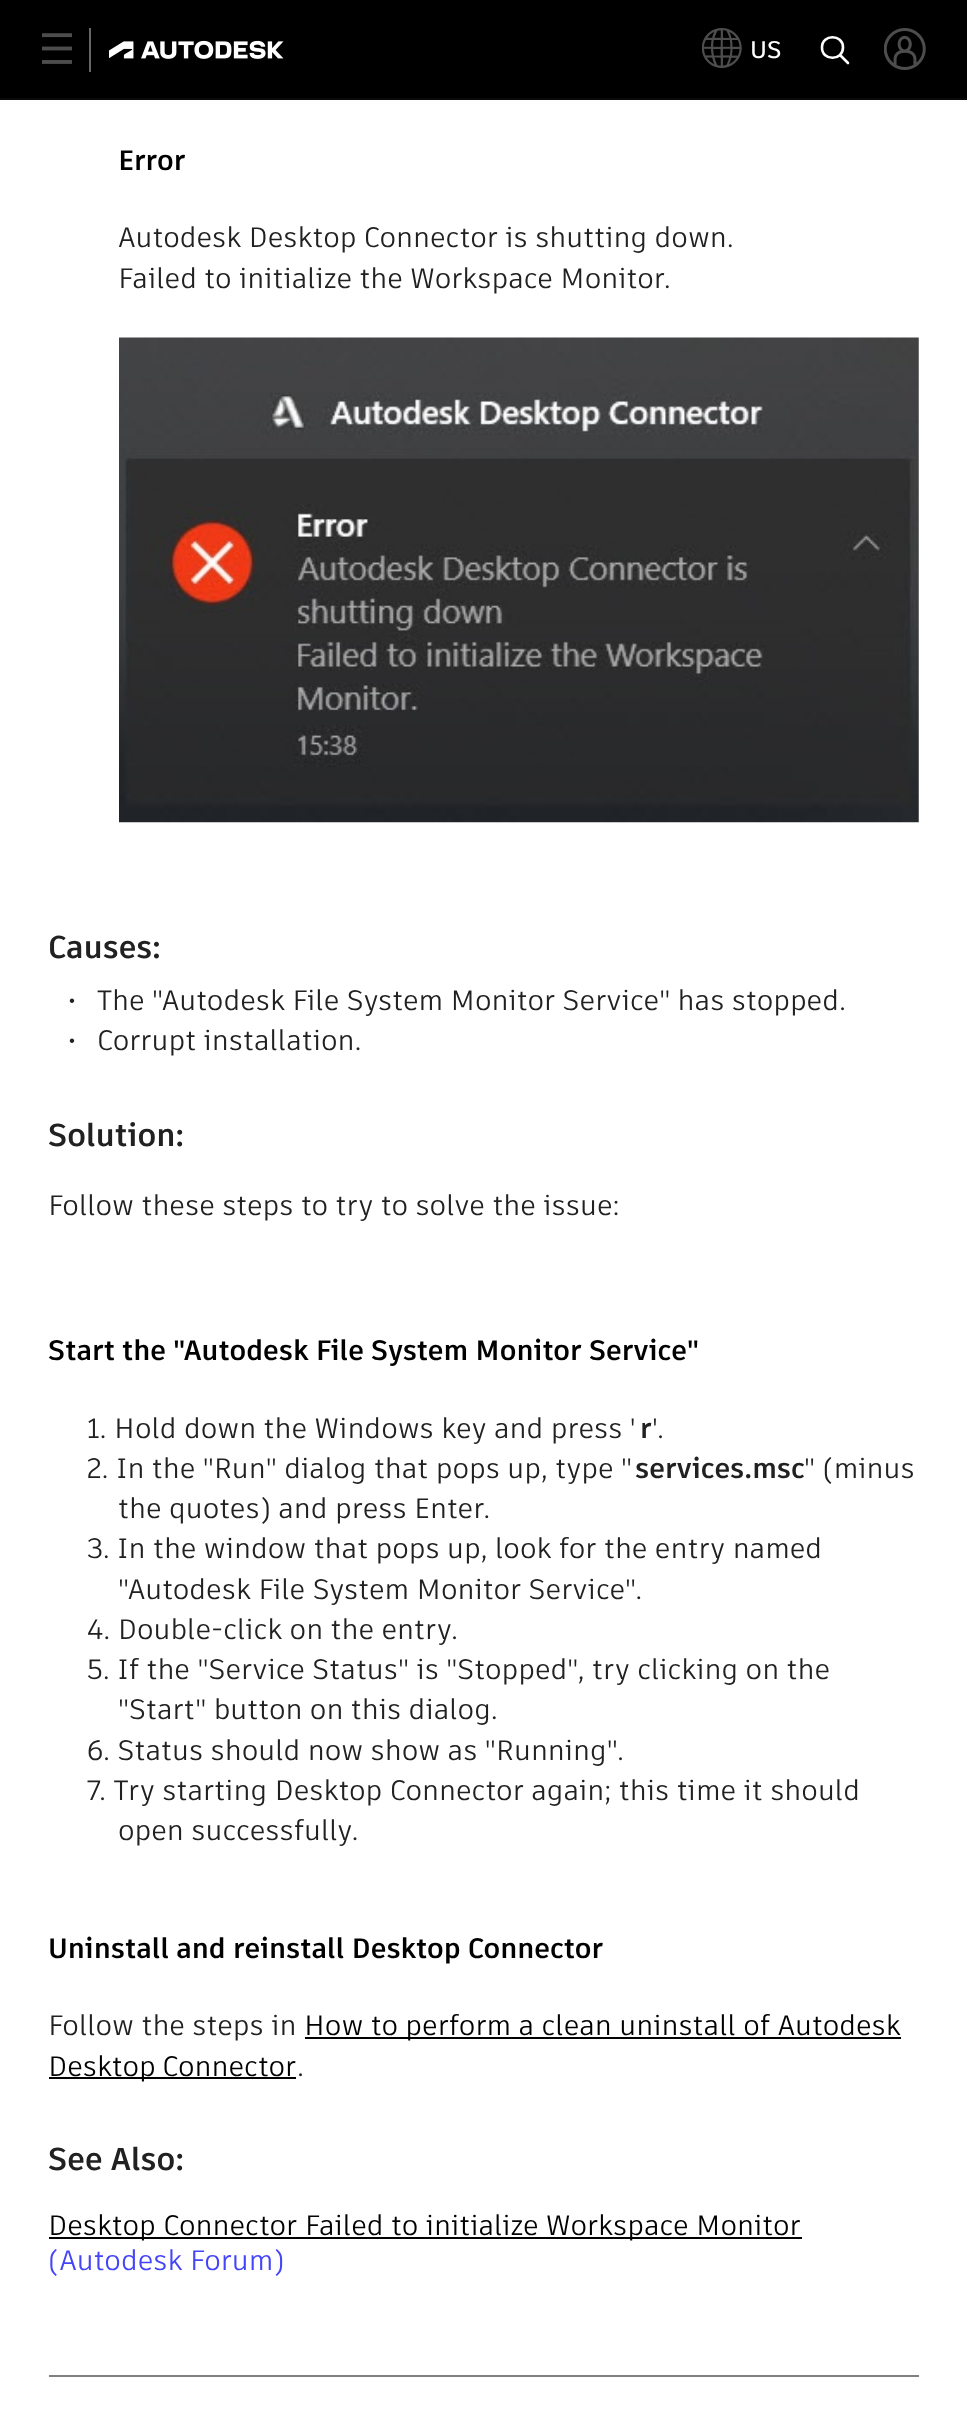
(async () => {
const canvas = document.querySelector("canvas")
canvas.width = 967
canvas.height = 2425
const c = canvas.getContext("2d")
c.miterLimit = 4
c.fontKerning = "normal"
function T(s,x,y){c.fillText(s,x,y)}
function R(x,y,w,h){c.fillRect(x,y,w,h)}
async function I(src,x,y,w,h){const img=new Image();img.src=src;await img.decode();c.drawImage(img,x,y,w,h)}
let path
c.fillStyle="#fff"
R(0,0,967,2425)
c.fillStyle="#000"
R(0,0,967,98)
c.fillStyle="#0a0a0a"
R(0,98,967,2)
await I("1.png",42,33,30,31)
c.fillStyle="#666"
R(89,28,2,44)
await I("2.png",109,40,175,19)
await I("3.png",702,28,40,40)
c.font="600 24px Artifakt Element"
c.fillStyle="#fff"
T("US",750,58)
path = new Path2D("M840 55l8 8m-5-15.5c0 13.5-21 14-21 0c0-14 21-13.5 21 0z")
c.strokeStyle="#fff"
c.lineWidth=2.6
c.lineCap="round"
c.stroke(path)
await I("4.png",884,28,42,42)
c.font="bold 28px Artifakt Element"
c.fillStyle="#000"
T("Error",118,170)
c.font="28px Artifakt Element"
c.fillStyle="#212121"
T("Autodesk Desktop Connector is shutting down.",118,247)
T("Failed to initialize the Workspace Monitor.",118,288)
await I("5.png",119,337,800,486)
c.font="bold 31.5px Artifakt Element"
T("Causes:",48,958)
c.font="bold 28px Artifakt Element"
T("·",68,1010)
c.font="28px Artifakt Element"
T("The \"Autodesk File System Monitor Service\" has stopped.",97,1010)
c.font="bold 28px Artifakt Element"
T("·",68,1050)
c.font="28px Artifakt Element"
T("Corrupt installation.",97,1050)
c.font="bold 31.5px Artifakt Element"
T("Solution:",48,1146)
c.font="28px Artifakt Element"
T("Follow these steps to try to solve the issue:",48,1215)
c.font="bold 28px Artifakt Element"
c.fillStyle="#000"
T("Start the \"Autodesk File System Monitor Service\"",48,1360)
c.font="28px Artifakt Element"
c.fillStyle="#212121"
T("1. Hold down the Windows key and press '",87,1438)
c.font="bold 28px Artifakt Element"
T("r",640,1438)
c.font="28px Artifakt Element"
T("'.",652,1438)
T("2. In the \"Run\" dialog that pops up, type \"",87,1478)
c.font="bold 28px Artifakt Element"
T("services.msc",635,1478)
c.font="28px Artifakt Element"
T("\" (minus",804,1478)
T("the quotes) and press Enter.",118,1518)
T("3. In the window that pops up, look for the entry named",87,1558)
T("\"Autodesk File System Monitor Service\".",118,1599)
T("4. Double-click on the entry.",87,1639)
T("5. If the \"Service Status\" is \"Stopped\", try clicking on the",87,1679)
T("\"Start\" button on this dialog.",118,1719)
T("6. Status should now show as \"Running\".",87,1760)
T("7. Try starting Desktop Connector again; this time it should",87,1800)
T("open successfully.",118,1840)
c.font="bold 28px Artifakt Element"
c.fillStyle="#000"
T("Uninstall and reinstall Desktop Connector",48,1958)
c.font="28px Artifakt Element"
c.fillStyle="#212121"
T("Follow the steps in",48,2035)
c.fillStyle="#000"
R(305,2037,596,2)
T("How to perform a clean uninstall of Autodesk",304,2035)
R(49,2077,247,2)
c.wordSpacing="-1px"
T("Desktop Connector",48,2076)
c.wordSpacing="0px"
c.fillStyle="#212121"
T(".",297,2076)
c.font="bold 31.5px Artifakt Element"
T("See Also:",48,2170)
c.fillStyle="#000"
R(49,2237,753,2)
c.font="28px Artifakt Element"
T("Desktop Connector Failed to initialize Workspace Monitor",48,2235)
c.fillStyle="#4444f8"
T("(Autodesk Forum)",48,2270)
c.fillStyle="#808080"
R(49,2375,870,2)
})()
